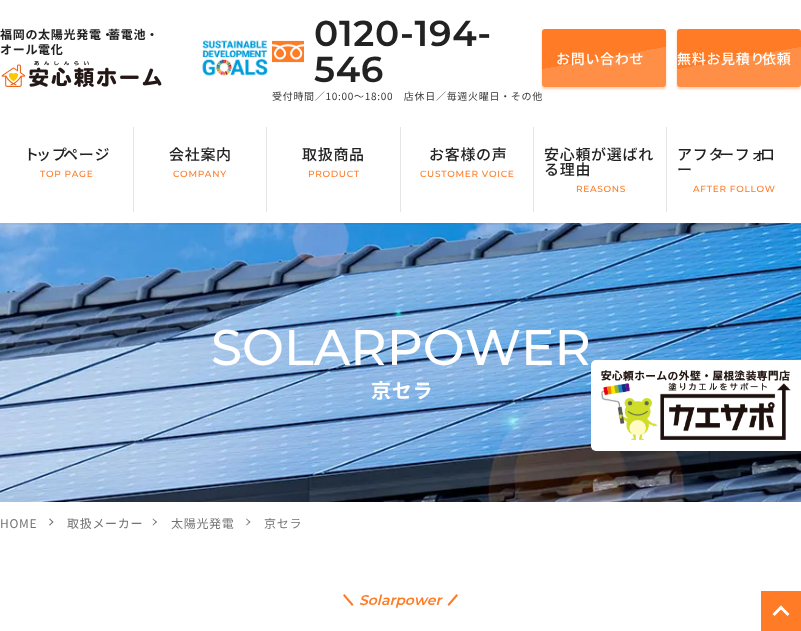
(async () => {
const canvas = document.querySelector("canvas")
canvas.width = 801
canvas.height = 631
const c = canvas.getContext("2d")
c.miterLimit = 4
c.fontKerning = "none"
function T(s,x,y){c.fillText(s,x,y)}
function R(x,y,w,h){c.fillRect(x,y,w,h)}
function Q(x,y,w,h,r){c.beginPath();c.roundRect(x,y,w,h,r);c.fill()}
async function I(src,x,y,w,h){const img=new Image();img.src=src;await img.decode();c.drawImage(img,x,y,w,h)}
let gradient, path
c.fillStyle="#fff"
R(0,0,801,631)
c.letterSpacing="0.7px"
c.font="bold 12px Noto Sans JP"
c.fillStyle="#222"
T("福岡の太陽光発電・",0,39)
T("蓄電池・",108,39)
T("オール電化",0,54)
await I("1.png",1,61,161,26)
await I("2.png",202,40,66,36)
c.font="600 36px Montserrat"
T("0120-194-",314,46)
await I("3.png",272,40,32,23)
T("546",314,82)
c.font="10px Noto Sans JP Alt"
c.fillStyle="#373737"
T("受付時間／10:00～18:00　店休日／毎週火曜日・その他",272,100)
c.fillStyle="#ffcdac"
c.filter="blur(1px)"
c.beginPath()
c.roundRect(542,31,124,58,3)
c.fill()
c.filter="none"
gradient = c.createLinearGradient(597,19,611,97)
gradient.addColorStop(.5,"#ff7b25")
gradient.addColorStop(.5,"#ff8f46")
c.fillStyle = gradient
Q(542,29,124,58,3)
c.font="500 14px Noto Sans JP"
c.fillStyle="#fff"
T("お問い合わせ",556,64)
c.fillStyle="#ffcdac"
c.filter="blur(1px)"
c.beginPath()
c.roundRect(677,31,124,58,3)
c.fill()
c.filter="none"
gradient = c.createLinearGradient(732,19,746,97)
gradient.addColorStop(.5,"#ff7b25")
gradient.addColorStop(.5,"#ff8f46")
c.fillStyle = gradient
Q(677,29,124,58,3)
c.fillStyle="#fff"
T("無料お見積り",677,64)
T("依頼",762,64)
await I("4.png",0,223,801,279)
c.save()
c.beginPath()
c.rect(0,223,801,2)
c.clip()
c.fillStyle="#0000000d"
c.filter="blur(1px)"
c.beginPath()
c.rect(0,118,801,107)
c.fill()
c.filter="none"
c.restore()
c.font="500 15px Noto Sans JP"
c.fillStyle="#222"
T("ト",24,160)
T("ップ",36,160)
T("ページ",63,160)
c.font="500 9px Montserrat"
c.fillStyle="#ff7b25"
T("TOP PAGE",40,177)
c.fillStyle="#e2e6e4"
R(133,127,1,85)
c.font="500 15px Noto Sans JP"
c.fillStyle="#222"
T("会社案内",169,160)
c.font="500 9px Montserrat"
c.fillStyle="#ff7b25"
T("COMPANY",173,177)
c.fillStyle="#e2e6e4"
R(266,127,1,85)
c.font="500 15px Noto Sans JP"
c.fillStyle="#222"
T("取扱商品",302,160)
c.font="500 9px Montserrat"
c.fillStyle="#ff7b25"
T("PRODUCT",308,177)
c.fillStyle="#e2e6e4"
R(400,127,1,85)
c.font="500 15px Noto Sans JP"
c.fillStyle="#222"
T("お客様の声",429,160)
c.font="500 9px Montserrat"
c.fillStyle="#ff7b25"
T("CUSTOMER VOICE",420,177)
c.fillStyle="#e2e6e4"
R(533,127,1,85)
c.font="500 15px Noto Sans JP"
c.fillStyle="#222"
T("安心頼が選ばれ",544,160)
T("る理由",544,175)
c.font="500 9px Montserrat"
c.fillStyle="#ff7b25"
T("REASONS",576,192)
c.fillStyle="#e2e6e4"
R(666,127,1,85)
c.font="500 15px Noto Sans JP"
c.fillStyle="#222"
T("アフタ",677,160)
T("ーフォ",719,160)
T("ロ",760,160)
T("ー",677,175)
c.font="500 9px Montserrat"
c.fillStyle="#ff7b25"
T("AFTER FOLLOW",693,192)
c.letterSpacing="0px"
c.font="500 50px Montserrat"
c.fillStyle="#fff"
T("SOLARPOWER",211,365)
c.letterSpacing="0.7px"
c.font="bold 20px Noto Sans JP"
T("京セラ",371,398)
c.beginPath()
c.roundRect(591,360,210,91,[5,0,0,5])
c.fill()
await I("5.png",601,370,190,70)
c.font="12px Noto Sans JP"
c.fillStyle="#737373"
T("HOME",0,528)
path = new Path2D("M50 518.5l3.5 3.5l-1 .5l-3.5-3.5z")
c.fill(path)
path = new Path2D("M52.5 521.5l1 .5l-3.5 3.5l-1-.5z")
c.fill(path)
T("取扱メーカー",67,528)
path = new Path2D("M153 518.5l4 3.5l-1 .5l-3.5-3.5z")
c.fill(path)
path = new Path2D("M156 521.5l1 .5l-4 3.5l-.5-.5z")
c.fill(path)
T("太陽光発電",171,528)
path = new Path2D("M246.5 518.5l4 3.5l-1 .5l-3.5-3.5z")
c.fill(path)
path = new Path2D("M249.5 521.5l1 .5l-4 3.5l-.5-.5z")
c.fill(path)
T("京セラ",264,528)
c.fillStyle="#ff7b25"
path = new Path2D("M343 595.5l1.5-1.5l9 10.5l-1.5 1.5z")
c.fill(path)
c.letterSpacing="0px"
c.font="italic 600 14px Montserrat"
T("Solarpower",359,605)
path = new Path2D("M456.5 594l1.5 1.5l-9 10.5l-1.5-1.5z")
c.fill(path)
R(761,591,40,40)
c.fillStyle="#fff"
path = new Path2D("M772.5 614l8.5-8.5l2 2l-8.5 8.5z")
c.fill(path)
path = new Path2D("M779 607.5l2-2l8.5 8.5l-2 2z")
c.fill(path)
})()
